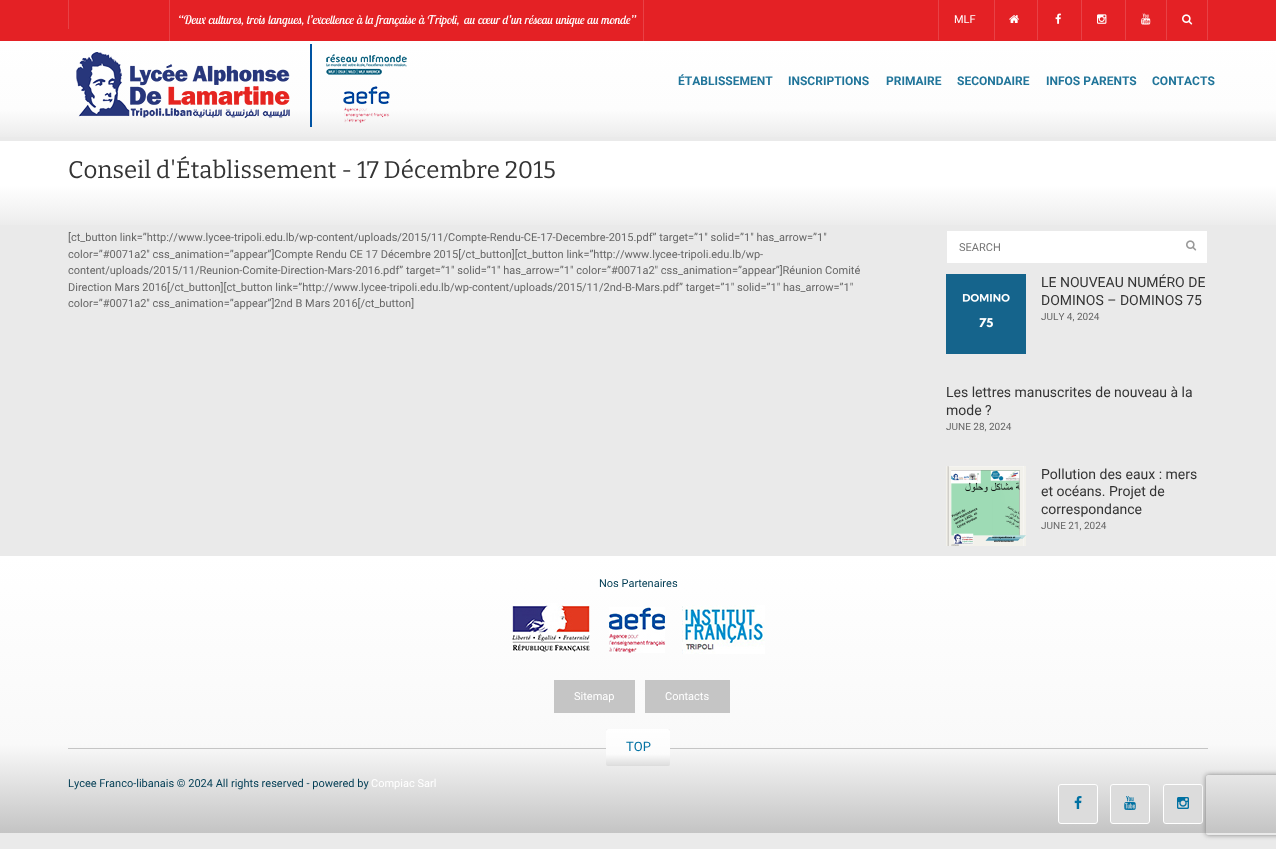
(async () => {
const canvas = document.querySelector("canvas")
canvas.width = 1276
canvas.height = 849
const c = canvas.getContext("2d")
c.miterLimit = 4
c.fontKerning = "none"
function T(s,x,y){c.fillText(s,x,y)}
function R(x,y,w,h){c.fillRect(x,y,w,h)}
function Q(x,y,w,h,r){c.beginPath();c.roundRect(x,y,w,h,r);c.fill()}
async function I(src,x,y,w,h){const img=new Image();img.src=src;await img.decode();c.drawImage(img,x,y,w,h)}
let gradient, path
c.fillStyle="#eaeaea"
R(0,0,1276,849)
c.fillStyle="#e42125"
R(0,0,1276,41)
c.fillStyle="#e84246"
R(68,0,1,29)
R(643,0,1,41)
R(169,0,1,41)
c.font="italic 12px Lobster Two"
c.fillStyle="#fff"
T("“Deux cultures, trois langues, l’excellence à la française à Tripoli,",178,24)
T("au cœur d’un réseau unique au monde”",464,24)
c.fillStyle="#e84246"
R(938,0,1,40)
c.font="11px Roboto"
c.fillStyle="#fff"
T("MLF",954,23)
c.fillStyle="#e84246"
R(994,0,1,40)
await I("1.png",1009,15,10,8)
R(1037,0,1,40)
await I("2.png",1055,13,6,11)
R(1081,0,1,40)
await I("3.png",1097,14,10,10)
R(1125,0,1,40)
await I("4.png",1141,13,10,12)
R(1207,0,1,40)
R(1166,0,1,40)
await I("5.png",1182,14,11,11)
gradient = c.createLinearGradient(638,41,638,141)
gradient.addColorStop(0,"#fff")
gradient.addColorStop(.68,"#fdfdfd")
gradient.addColorStop(1,"#eaeaea")
c.fillStyle = gradient
R(0,41,1276,96)
await I("6.png",76,44,331,83)
c.font="bold 12px Roboto"
c.fillStyle="#21759a"
T("ÉTABLISSEMENT",678,85)
T("INSCRIPTIONS",788,85)
T("PRIMAIRE",886,85)
T("SECONDAIRE",957,85)
T("INFOS PARENTS",1046,85)
T("CONTACTS",1152,85)
gradient = c.createLinearGradient(638,230,638,141)
gradient.addColorStop(0,"#eaeaea")
gradient.addColorStop(.5,"#fff")
gradient.addColorStop(1,"#fff")
c.fillStyle = gradient
R(0,141,1276,84)
c.font="100 24px Bitter"
c.fillStyle="#343434"
T("Conseil d'Établissement - 17 Décembre 2015",68,178)
c.font="11px Roboto"
c.fillStyle="#666"
T("[ct_button link=”http://www.lycee-tripoli.edu.lb/wp-content/uploads/2015/11/Compte-Rendu-CE-17-Decembre-2015.pdf” target=”1″ solid=”1″ has_arrow=”1″",68,241)
T("color=”#0071a2″ css_animation=”appear”]Compte Rendu CE 17 Décembre 2015[/ct_button][ct_button link=”http://www.lycee-tripoli.edu.lb/wp-",68,258)
T("content/uploads/2015/11/Reunion-Comite-Direction-Mars-2016.pdf” target=”1″ solid=”1″ has_arrow=”1″ color=”#0071a2″ css_animation=”appear”]Réunion Comité",68,274)
T("Direction Mars 2016[/ct_button][ct_button link=”http://www.lycee-tripoli.edu.lb/wp-content/uploads/2015/11/2nd-B-Mars.pdf” target=”1″ solid=”1″ has_arrow=”1″",68,291)
T("color=”#0071a2″ css_animation=”appear”]2nd B Mars 2016[/ct_button]",68,307)
c.fillStyle="#fff"
R(947,231,260,32)
c.fillStyle="#757575"
T("SEARCH",959,251)
await I("7.png",1186,240,11,11)
await I("8.png",946,274,80,80)
c.font="14px Roboto"
c.fillStyle="#343434"
T("LE NOUVEAU NUMÉRO DE",1041,287)
T("DOMINOS – DOMINOS 75",1041,305)
c.font="10px Roboto"
c.fillStyle="#666"
T("JULY 4, 2024",1041,320)
c.font="14px Roboto"
c.fillStyle="#343434"
T("Les lettres manuscrites de nouveau à la",946,397)
T("mode ?",946,415)
c.font="10px Roboto"
c.fillStyle="#666"
T("JUNE 28, 2024",946,430)
await I("9.png",946,466,80,80)
c.font="14px Roboto"
c.fillStyle="#343434"
T("Pollution des eaux : mers",1041,479)
T("et océans. Projet de",1041,496)
T("correspondance",1041,514)
c.font="10px Roboto"
c.fillStyle="#666"
T("JUNE 21, 2024",1041,529)
gradient = c.createLinearGradient(638,556,638,833)
gradient.addColorStop(0,"#fff")
gradient.addColorStop(.68,"#f9f9f9")
gradient.addColorStop(1,"#c4c4c4")
c.fillStyle = gradient
R(0,556,1276,277)
c.font="11px Roboto"
c.fillStyle="#023d54"
T("Nos Partenaires",599,587)
await I("10.png",512,603,78,49)
await I("11.png",609,607,56,46)
await I("12.png",682,605,83,49)
c.fillStyle="#c5c5c5"
R(554,680,81,33)
c.fillStyle="#fff"
T("Sitemap",574,700)
c.fillStyle="#c5c5c5"
R(645,680,85,33)
c.fillStyle="#fff"
T("Contacts",665,700)
c.fillStyle="#c5c5c5"
R(68,748,1140,1)
c.fillStyle="#dcdcdc"
Q(606,729,64,37,2)
gradient = c.createLinearGradient(638,729,638,766)
gradient.addColorStop(0,"#fff")
gradient.addColorStop(.68,"#ffffffe6")
gradient.addColorStop(1,"#ffffff00")
c.fillStyle = gradient
Q(606,729,64,37,2)
c.font="13px Roboto"
c.fillStyle="#0071a2"
T("TOP",626,751)
c.font="11px Roboto"
c.fillStyle="#023d54"
T("Lycee Franco-libanais © 2024 All rights reserved - powered by",68,787)
c.fillStyle="#fff"
T("Compiac Sarl",371,787)
c.fillStyle="#dcdcdc"
c.beginPath()
c.roundRect(1058.5,784.5,39,39,2.5)
c.fill()
c.strokeStyle="#fff"
c.stroke()
await I("13.png",1074,796,8,13)
c.beginPath()
c.roundRect(1110.5,784.5,39,39,2.5)
c.fill()
c.stroke()
await I("14.png",1124,796,12,14)
c.beginPath()
c.roundRect(1163.5,784.5,39,39,2.5)
c.fill()
c.stroke()
await I("15.png",1177,797,12,12)
c.save()
path = new Path2D("M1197 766h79v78h-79zm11 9h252c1 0 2 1 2 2v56c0 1-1 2-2 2h-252c-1 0-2-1-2-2v-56c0-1 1-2 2-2z")
c.clip(path,"evenodd")
c.fillStyle="#808080"
c.filter="blur(2.5px)"
c.beginPath()
c.roundRect(1206,775,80,60,2)
c.fill()
c.filter="none"
c.restore()
})()
